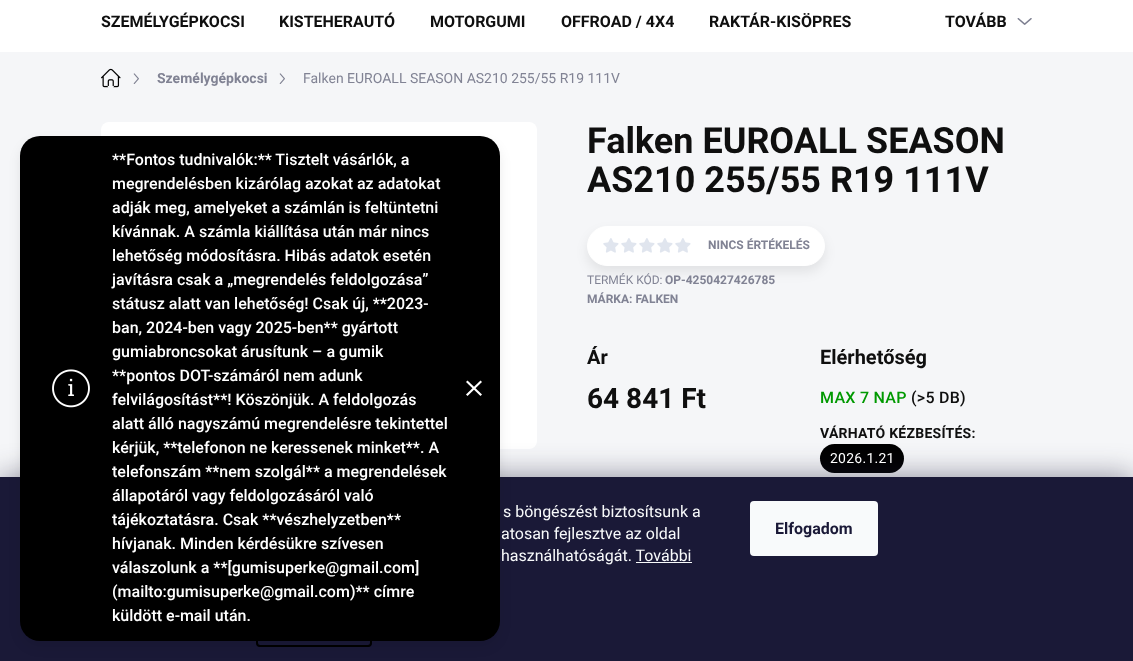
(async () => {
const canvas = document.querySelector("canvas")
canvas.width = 1133
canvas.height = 661
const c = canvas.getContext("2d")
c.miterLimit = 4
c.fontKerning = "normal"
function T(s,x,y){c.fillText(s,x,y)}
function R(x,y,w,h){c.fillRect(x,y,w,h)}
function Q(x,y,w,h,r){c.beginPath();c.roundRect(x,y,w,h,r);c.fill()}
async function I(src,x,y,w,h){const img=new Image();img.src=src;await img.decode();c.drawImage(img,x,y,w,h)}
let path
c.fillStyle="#f5f6f8"
R(0,0,1133,661)
c.fillStyle="#fff"
R(0,0,1133,52)
c.font="bold 16px Roboto"
c.fillStyle="#0f0f0f"
T("SZEMÉLYGÉPKOCSI",101,27)
T("KISTEHERAUTÓ",279,27)
T("MOTORGUMI",430,27)
T("OFFROAD / 4X4",561,27)
T("RAKTÁR-KISÖPRES",709,27)
T("TOVÁBB",945,27)
await I("1.png",1017,18,15,7)
await I("2.png",101,68,20,20)
await I("3.png",133,73,6,11)
c.font="bold 14px Roboto"
c.fillStyle="#818394"
T("Személygépkocsi",157,83)
await I("3.png",279,73,6,11)
c.font="14px Roboto"
T("Falken EUROALL SEASON AS210 255/55 R19 111V",303,83)
await I("5.png",101,122,436,327)
c.fillStyle="#000"
Q(820,444,84,29,14.5)
c.fillStyle="#1b193980"
c.filter="blur(15px)"
c.beginPath()
c.rect(0,477,1133,184)
c.fill()
c.filter="none"
c.fillStyle="#1a1937"
R(0,477,1133,184)
c.beginPath()
c.roundRect(257,606,114,40,3)
c.strokeStyle="#000"
c.lineWidth=2
c.stroke()
c.fillStyle="#00000014"
c.filter="blur(6px)"
c.beginPath()
c.roundRect(20,142,480,505,20)
c.fill()
c.filter="none"
c.fillStyle="#000"
Q(20,136,480,505,20)
c.font="500 16px Roboto"
c.fillStyle="#fff"
T("**Fontos tudnivalók:** Tisztelt vásárlók, a",112,165)
T("megrendelésben kizárólag azokat az adatokat",112,189)
T("adják meg, amelyeket a számlán is feltüntetni",112,213)
T("kívánnak. A számla kiállítása után már nincs",112,237)
T("lehetőség módosításra. Hibás adatok esetén",112,261)
T("javításra csak a „megrendelés feldolgozása”",112,285)
T("státusz alatt van lehetőség! Csak új, **2023-",112,309)
T("ban, 2024-ben vagy 2025-ben** gyártott",112,333)
T("gumiabroncsokat árusítunk – a gumik",112,357)
await I("4.png",52,369,38,39)
T("**pontos DOT-számáról nem adunk",112,381)
T("felvilágosítást**! Köszönjük. A feldolgozás",112,405)
T("alatt álló nagyszámú megrendelésre tekintettel",112,429)
T("kérjük, **telefonon ne keressenek minket**. A",112,453)
T("telefonszám **nem szolgál** a megrendelések",112,477)
T("állapotáról vagy feldolgozásáról való",112,501)
T("tájékoztatásra. Csak **vészhelyzetben**",112,525)
T("hívjanak. Minden kérdésükre szívesen",112,549)
T("válaszolunk a **[gumisuperke@gmail.com]",112,573)
T("(mailto:gumisuperke@gmail.com)** címre",112,597)
T("küldött e-mail után.",112,621)
path = new Path2D("M480.5 380.5l1.5 1.5l-14.5 14l-1.5-1.5z")
c.fill(path)
path = new Path2D("M467.5 380.5l14.5 14l-1.5 1.5l-14.5-14z")
c.fill(path)
c.font="bold 36px Roboto"
c.fillStyle="#0f0f0f"
T("Falken EUROALL SEASON",587,153)
T("AS210 255/55 R19 111V",587,192)
c.fillStyle="#00000014"
c.filter="blur(6px)"
c.beginPath()
c.roundRect(587,232,238,40,20)
c.fill()
c.filter="none"
c.fillStyle="#fff"
c.beginPath()
c.roundRect(587.5,226.5,237,39,19.5)
c.fill()
c.strokeStyle="#fff"
c.lineWidth=1
c.stroke()
await I("6.png",603,238,16,15)
await I("6.png",621,238,16,15)
await I("6.png",639,238,16,15)
await I("6.png",657,238,16,15)
await I("6.png",675,238,16,15)
c.font="bold 12px Roboto"
c.fillStyle="#818394"
T("NINCS ÉRTÉKELÉS",708,249)
c.font="12px Roboto"
T("TERMÉK KÓD:",587,284)
c.font="bold 12px Roboto"
T("OP-4250427426785",665,284)
T("MÁRKA: FALKEN",587,303)
c.font="bold 20px Roboto"
c.fillStyle="#0f0f0f"
T("Ár",587,364)
c.font="bold 28px Roboto"
T("64 841 Ft",587,408)
c.font="bold 20px Roboto"
T("Elérhetőség",820,364)
c.letterSpacing="0.25px"
c.font="500 16px Roboto"
c.fillStyle="#009901"
T("MAX 7 NAP",820,403)
c.fillStyle="#0f0f0f"
T("(>5 DB)",911,403)
c.font="bold 14px Roboto"
T("VÁRHATÓ KÉZBESÍTÉS:",820,438)
c.font="14px Roboto"
c.fillStyle="#fff"
T("2026.1.21",830,463)
c.letterSpacing="0px"
c.font="16px Roboto"
c.fillStyle="#f8fafb"
T("s böngészést biztosítsunk a",503,517)
T("atosan fejlesztve az oldal",501,539)
T("használhatóságát. További",501,561)
R(636,562,56,1)
Q(750,501,128,55,4)
c.font="bold 16px Roboto"
c.fillStyle="#1a1937"
T("Elfogadom",775,534)
})()
